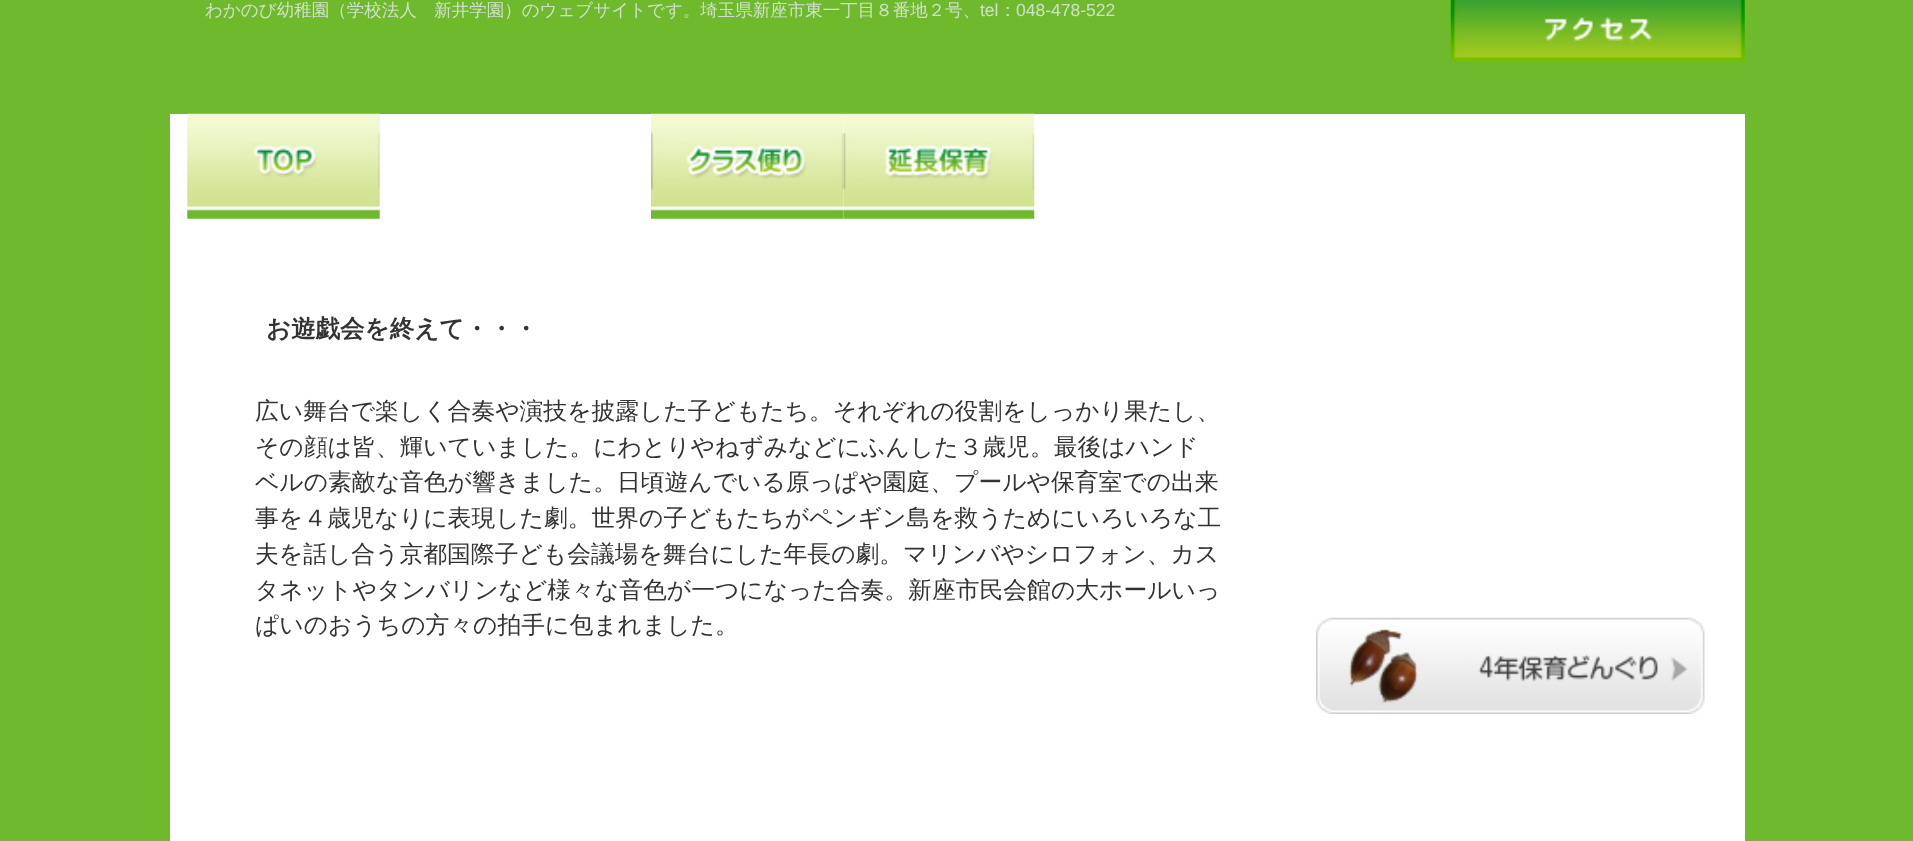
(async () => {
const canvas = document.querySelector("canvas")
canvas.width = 1913
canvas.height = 841
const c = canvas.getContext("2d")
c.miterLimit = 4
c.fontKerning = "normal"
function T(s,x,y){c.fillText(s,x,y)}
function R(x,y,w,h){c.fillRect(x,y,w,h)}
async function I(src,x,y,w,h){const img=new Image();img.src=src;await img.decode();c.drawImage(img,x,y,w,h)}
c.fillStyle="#6fba2c"
R(0,0,1913,841)
c.font="500 17.5px WenQuanYi Zen Hei"
c.fillStyle="#cee0ca"
T("わかのび幼稚園（学校法人　新井学園）のウェブサイトです。埼玉県新座市東一丁目８番地２号、",205,16)
c.font="17.5px Liberation Sans"
T("tel",980,16)
c.font="500 17.5px WenQuanYi Zen Hei"
T("：",999,16)
c.font="17.5px Liberation Sans"
T("048-478-522",1016,16)
await I("1.png",1450,0,295,62)
c.fillStyle="#fff"
R(170,114,1575,727)
await I("2.png",187,113,193,106)
await I("3.png",651,113,193,106)
await I("4.png",843,113,192,106)
c.font="bold 24.5px WenQuanYi Zen Hei"
c.fillStyle="#333"
T("お遊戯会を終えて・・・",266,337)
c.font="500 23.8px WenQuanYi Zen Hei"
T("広い舞台で楽しく合奏や演技を披露した子どもたち。それぞれの役割をしっかり果たし、",255,419)
T("その顔は皆、輝いていました。にわとりやねずみなどにふんした３歳児。最後はハンド",255,455)
T("ベルの素敵な音色が響きました。日頃遊んでいる原っぱや園庭、プールや保育室での出来",255,490)
T("事を４歳児なりに表現した劇。世界の子どもたちがペンギン島を救うためにいろいろな工",255,526)
T("夫を話し合う京都国際子ども会議場を舞台にした年長の劇。マリンバやシロフォン、カス",255,562)
T("タネットやタンバリンなど様々な音色が一つになった合奏。新座市民会館の大ホールいっ",255,598)
T("ぱいのおうちの方々の拍手に包まれました。",255,633)
await I("5.png",1316,617,389,97)
})()
